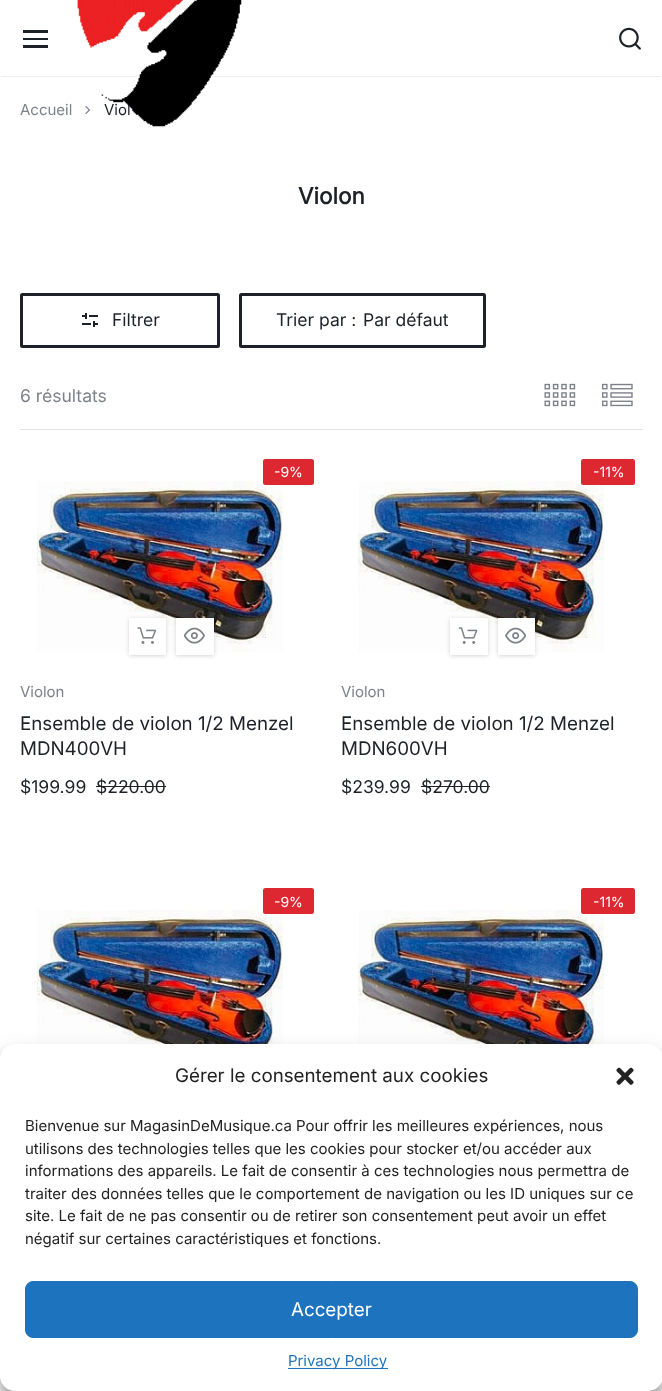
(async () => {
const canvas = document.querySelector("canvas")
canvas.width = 662
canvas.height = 1391
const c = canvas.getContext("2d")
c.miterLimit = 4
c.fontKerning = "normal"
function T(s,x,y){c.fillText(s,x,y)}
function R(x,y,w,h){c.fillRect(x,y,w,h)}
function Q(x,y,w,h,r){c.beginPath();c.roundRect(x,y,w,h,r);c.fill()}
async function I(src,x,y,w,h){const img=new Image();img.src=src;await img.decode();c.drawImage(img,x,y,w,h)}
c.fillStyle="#fff"
R(0,0,662,1391)
c.fillStyle="#1d2128"
R(23,30,25,3)
R(23,38,25,2)
R(23,45,25,3)
c.fillStyle="#ebeff3"
R(1,76,660,1)
await I("3.png",85,105,6,10)
c.font="15px Inter"
c.fillStyle="#1d2128"
T("Viol",104,115)
await I("1.png",77,0,165,127)
await I("2.png",619,27,22,23)
c.fillStyle="#7d828a"
T("Accueil",20,115)
c.font="bold 22.5px Inter"
c.fillStyle="#1d2128"
T("Violon",298,204)
c.fillStyle="#e3e3e3"
R(20,429,623,1)
c.beginPath()
c.roundRect(21.5,294.5,197,52,1)
c.strokeStyle="#1d2128"
c.lineWidth=3
c.stroke()
await I("4.png",82,313,16,14)
c.font="17.5px Inter"
c.fillStyle="#1d2128"
T("Filtrer",112,326)
c.beginPath()
c.roundRect(240.5,294.5,244,52,1)
c.stroke()
T("Trier par :",276,326)
T("Par défaut",363,326)
c.fillStyle="#7d828a"
T("6 résultats",20,402)
await I("5.png",544,383,32,24)
await I("6.png",602,383,31,24)
await I("7.png",36,481,248,171)
c.fillStyle="#dd2831"
Q(263,459,51,26,2.5)
c.font="14px Inter"
c.fillStyle="#fff"
T("-9%",274,477)
c.fillStyle="#00000029"
c.filter="blur(2px)"
c.beginPath()
c.rect(129,619,37,37)
c.fill()
c.filter="none"
c.fillStyle="#fff"
R(129,618,37,37)
await I("8.png",137,627,20,17)
c.fillStyle="#00000029"
c.filter="blur(2px)"
c.beginPath()
c.rect(176,619,38,37)
c.fill()
c.filter="none"
c.fillStyle="#fff"
R(176,618,38,37)
await I("9.png",184,627,21,17)
c.font="15px Inter"
c.fillStyle="#7d828a"
T("Violon",20,697)
c.font="18.75px Inter"
c.fillStyle="#1d2128"
T("Ensemble de violon 1/2 Menzel",20,730)
T("MDN400VH",20,755)
c.font="17.5px Inter"
T("$199.99",20,793)
T("$220.00",96,793)
R(96,786,70,1)
await I("10.png",357,481,248,171)
c.fillStyle="#dd2831"
Q(581,459,54,26,2.5)
c.font="14px Inter"
c.fillStyle="#fff"
T("-11%",593,477)
c.fillStyle="#00000029"
c.filter="blur(2px)"
c.beginPath()
c.rect(450,619,38,37)
c.fill()
c.filter="none"
c.fillStyle="#fff"
R(450,618,38,37)
await I("11.png",458,627,20,17)
c.fillStyle="#00000029"
c.filter="blur(2px)"
c.beginPath()
c.rect(498,619,37,37)
c.fill()
c.filter="none"
c.fillStyle="#fff"
R(498,618,37,37)
await I("12.png",505,627,21,17)
c.font="15px Inter"
c.fillStyle="#7d828a"
T("Violon",341,697)
c.font="18.75px Inter"
c.fillStyle="#1d2128"
T("Ensemble de violon 1/2 Menzel",341,730)
T("MDN600VH",341,755)
c.font="17.5px Inter"
T("$239.99",341,793)
T("$270.00",421,793)
R(421,786,69,1)
await I("13.png",36,910,248,134)
c.fillStyle="#dd2831"
Q(263,888,51,26,2.5)
c.font="14px Inter"
c.fillStyle="#fff"
T("-9%",274,907)
await I("14.png",357,910,248,134)
c.fillStyle="#dd2831"
Q(581,888,54,26,2.5)
c.fillStyle="#fff"
T("-11%",593,907)
c.fillStyle="#0000003b"
c.filter="blur(4px)"
c.beginPath()
c.roundRect(0,1051,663,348,15)
c.fill()
c.filter="none"
c.fillStyle="#00000030"
c.filter="blur(12.5px)"
c.beginPath()
c.roundRect(0,1056,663,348,15)
c.fill()
c.filter="none"
c.fillStyle="#fff"
Q(0,1044,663,347,15)
c.font="18.75px Inter"
c.fillStyle="#222"
T("Gérer le consentement aux cookies",175,1082)
await I("15.png",616,1067,18,18)
c.font="15px Inter"
T("Bienvenue sur MagasinDeMusique.ca Pour offrir les meilleures expériences, nous",25,1131)
T("utilisons des technologies telles que les cookies pour stocker et/ou accéder aux",25,1154)
T("informations des appareils. Le fait de consentir à ces technologies nous permettra de",25,1176)
T("traiter des données telles que le comportement de navigation ou les ID uniques sur ce",25,1199)
T("site. Le fait de ne pas consentir ou de retirer son consentement peut avoir un effet",25,1221)
T("négatif sur certaines caractéristiques et fonctions.",25,1244)
c.fillStyle="#1e73be"
c.beginPath()
c.roundRect(25.5,1281.5,612,56,7.5)
c.fill()
c.strokeStyle="#1e73be"
c.lineWidth=1
c.stroke()
c.font="18.75px Inter"
c.fillStyle="#fff"
T("Accepter",291,1316)
c.fillStyle="#1e73be"
R(288,1368,100,1)
c.font="15px Inter"
T("Privacy Policy",288,1366)
})()
